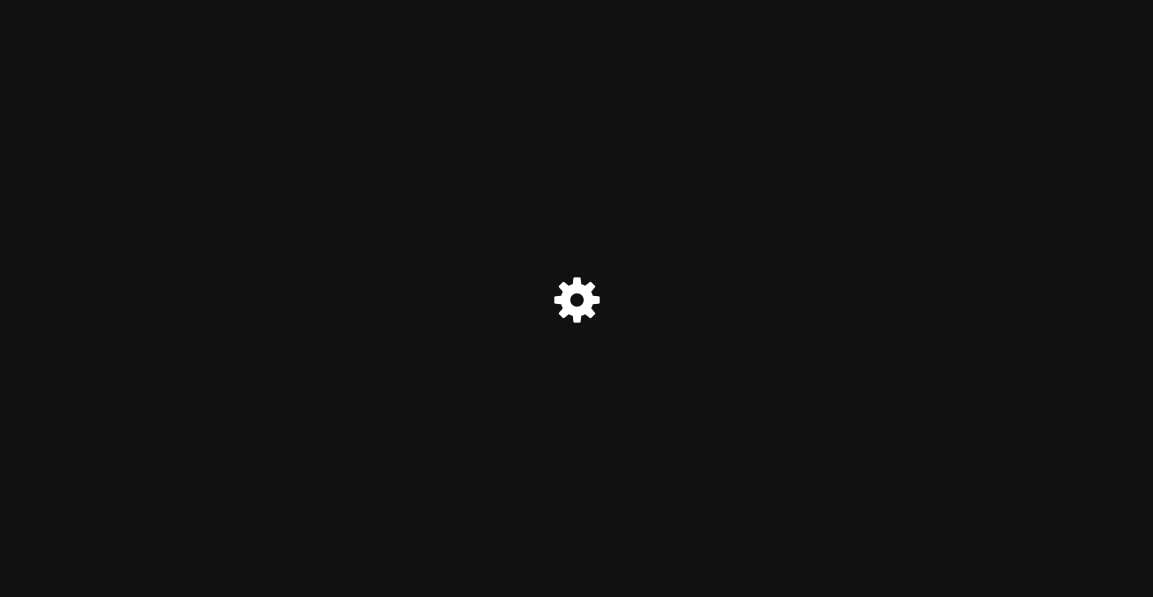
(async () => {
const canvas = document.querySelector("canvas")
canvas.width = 1153
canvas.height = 597
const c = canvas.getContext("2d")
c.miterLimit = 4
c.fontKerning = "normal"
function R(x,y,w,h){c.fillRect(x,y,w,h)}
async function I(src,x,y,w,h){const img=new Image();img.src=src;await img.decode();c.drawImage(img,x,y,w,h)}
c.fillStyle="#111"
R(0,0,1153,597)
await I("1.png",554,277,46,46)
})()
